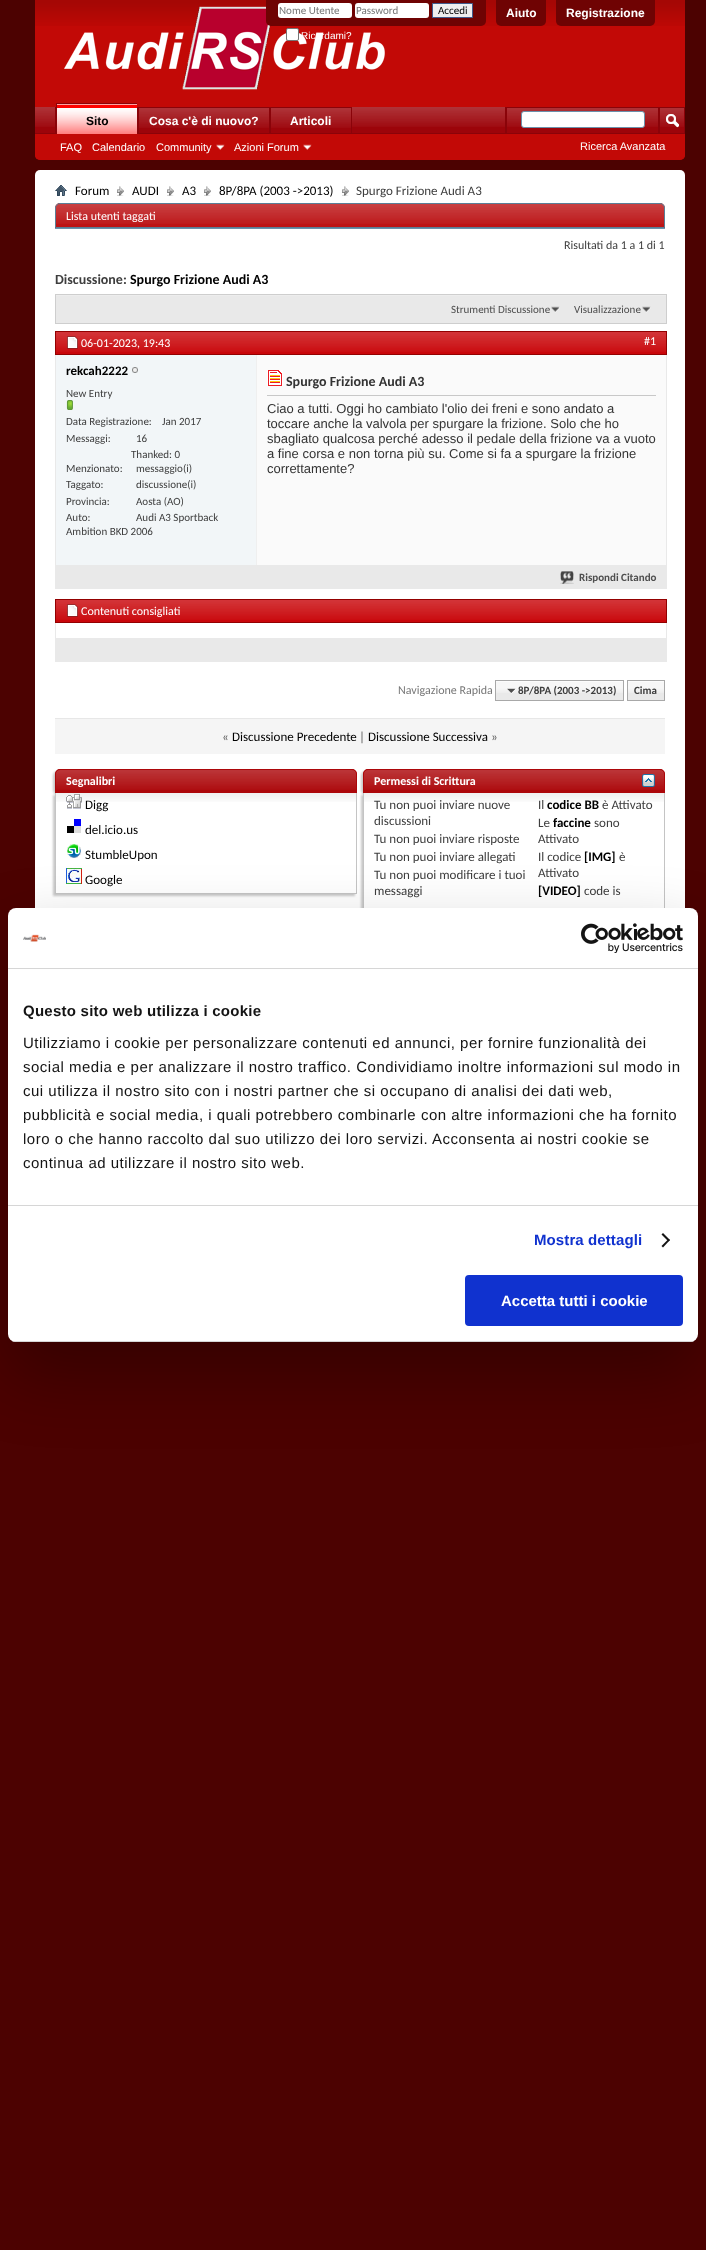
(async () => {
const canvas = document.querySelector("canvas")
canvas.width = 706
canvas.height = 2250
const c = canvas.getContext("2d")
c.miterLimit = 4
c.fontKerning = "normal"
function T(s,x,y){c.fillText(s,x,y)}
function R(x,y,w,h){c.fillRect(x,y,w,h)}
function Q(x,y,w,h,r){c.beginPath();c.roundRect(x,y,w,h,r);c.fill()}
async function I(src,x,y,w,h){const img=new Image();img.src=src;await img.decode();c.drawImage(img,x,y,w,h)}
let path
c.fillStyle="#4c0201"
R(0,0,706,2250)
c.fillStyle="#c20906"
c.beginPath()
c.roundRect(35,0,650,160,[0,0,5,5])
c.fill()
await I("1.png",35,0,650,26)
await I("2.png",64,6,321,84)
c.fillStyle="#6f0303"
c.beginPath()
c.roundRect(266,0,220,26,[0,0,5,5])
c.fill()
c.fillStyle="#fff"
Q(278,3,74,15,3)
c.font="11px Carlito"
c.fillStyle="#777"
T("Nome Utente",279,14)
c.fillStyle="#fff"
Q(355,3,74,15,3)
c.fillStyle="#777"
T("Password",356,14)
c.fillStyle="#efefef"
c.beginPath()
c.rect(432.5,3.5,40,14)
c.fill()
c.strokeStyle="#415d8d"
c.stroke()
c.fillStyle="#000"
T("Accedi",438,14)
c.fillStyle="#fff"
c.beginPath()
c.roundRect(286.5,28.5,12,12,1.5)
c.fill()
c.strokeStyle="#767676"
c.stroke()
c.font="10px Liberation Sans"
T("Ricordami?",301,39)
c.fillStyle="#6f0303"
c.beginPath()
c.roundRect(496,0,50,26,[0,0,5,5])
c.fill()
c.font="bold 12px Liberation Sans"
c.fillStyle="#fff"
T("Aiuto",506,17)
c.fillStyle="#6f0303"
c.beginPath()
c.roundRect(556,0,99,26,[0,0,5,5])
c.fill()
c.fillStyle="#fff"
T("Registrazione",566,17)
c.fillStyle="#c20906"
c.beginPath()
c.roundRect(35,107,650,53,[0,0,5,5])
c.fill()
c.fillStyle="#9c040a"
R(35,107,649,26)
await I("3.png",35,107,649,20)
c.fillStyle="#8a0309"
R(137,107,1,26)
R(55,107,1,26)
R(269,107,1,27)
R(138,107,131,1)
R(138,107,1,27)
R(351,107,1,27)
R(270,107,81,1)
R(270,107,1,27)
R(35,133,650,1)
c.fillStyle="#f00"
R(57,104,80,30)
await I("4.png",57,104,80,30)
c.fillStyle="#8a0309"
R(56,103,81,1)
R(56,103,1,31)
c.fillStyle="#000"
T("Sito",86,125)
c.fillStyle="#9c040a"
R(139,108,130,19)
await I("5.png",139,108,130,20)
c.fillStyle="#fff"
T("Cosa c'è di nuovo?",149,125)
c.fillStyle="#9c040a"
R(271,108,80,19)
await I("6.png",271,108,80,20)
c.fillStyle="#fff"
T("Articoli",290,125)
c.font="11px Liberation Sans"
T("FAQ",60,151)
T("Calendario",92,151)
T("Community",156,151)
await I("7.png",216,144,9,6)
T("Azioni Forum",234,151)
await I("7.png",303,144,9,6)
c.fillStyle="#8a0309"
R(505,107,1,26)
R(506,107,152,1)
R(506,107,1,26)
c.fillStyle="#fff"
c.beginPath()
c.roundRect(521.5,111.5,123,16,2.5)
c.fill()
c.strokeStyle="#6b91ab"
c.stroke()
c.fillStyle="#8a0309"
R(684,107,1,26)
R(658,107,1,26)
R(659,107,25,1)
R(659,107,1,26)
await I("8.png",666,114,13,14)
c.fillStyle="#fff"
T("Ricerca Avanzata",580,150)
Q(35,170,650,899,5)
await I("9.png",55,185,12,11)
await I("10.png",117,186,7,10)
c.font="13px Carlito"
c.fillStyle="#000"
T("Forum",75,195)
await I("10.png",167,186,7,10)
T("AUDI",132,195)
await I("10.png",204,186,7,10)
T("A3",182,195)
await I("10.png",342,186,7,10)
T("8P/8PA (2003 ->2013)",219,195)
c.fillStyle="#3e3e3e"
T("Spurgo Frizione Audi A3",356,195)
c.fillStyle="#bc1416"
c.beginPath()
c.roundRect(55,203,610,25,[5,5,0,0])
c.fill()
await I("11.png",55,204,610,20)
c.beginPath()
c.roundRect(55.5,203.5,609,24,[4.5,4.5,0,0])
c.strokeStyle="#5a7f97"
c.stroke()
c.font="12px Carlito"
c.fillStyle="#fff"
T("Lista utenti taggati",66,220)
c.fillStyle="#6b91ab"
R(55,228,610,1)
c.fillStyle="#3e3e3e"
T("Risultati da 1 a 1 di 1",564,249)
c.font="bold 14px Carlito"
T("Discussione:",55,284)
c.fillStyle="#000"
T("Spurgo Frizione Audi A3",130,284)
c.fillStyle="#e9e9e9"
R(56,296,610,27)
c.fillStyle="#ededed"
R(55,295,612,1)
c.strokeStyle="#cecece"
c.strokeRect(55.5,294.5,611,29)
await I("12.png",551,306,9,7)
c.font="11px Carlito"
c.fillStyle="#4e4e4e"
T("Strumenti Discussione",451,313)
await I("12.png",642,306,9,7)
T("Visualizzazione",574,313)
c.strokeStyle="#e9e9e9"
c.strokeRect(55.5,331.5,611,257)
c.fillStyle="#c9060a"
R(56,332,610,22)
await I("13.png",56,332,610,20)
c.strokeStyle="#930000"
c.strokeRect(55.5,331.5,611,23)
await I("14.png",67,336,11,13)
c.font="12px Carlito"
c.fillStyle="#fff"
T("06-01-2023, 19:43",81,347)
T("#1",644,345)
c.fillStyle="#f2f6f8"
R(56,355,200,210)
c.font="bold 13px Carlito"
c.fillStyle="#000"
T("rekcah2222",66,375)
await I("15.png",132,367,6,6)
c.font="11px Carlito"
c.fillStyle="#3e3e3e"
T("New Entry",66,397)
await I("16.png",66,400,7,10)
T("Data Registrazione:",66,425)
T("Jan 2017",162,425)
T("Messaggi:",66,442)
T("16",136,442)
T("Thanked: 0",131,458)
T("Menzionato:",66,472)
T("messaggio(i)",136,472)
T("Taggato:",66,488)
T("discussione(i)",136,488)
T("Provincia:",66,505)
T("Aosta (AO)",136,505)
T("Auto:",66,521)
T("Audi A3 Sportback",136,521)
T("Ambition BKD 2006",66,535)
c.fillStyle="#fafafa"
R(257,355,409,210)
c.fillStyle="#efefef"
R(256,355,1,210)
c.fillStyle="#c8c8c8"
R(267,395,389,1)
await I("17.png",267,370,16,16)
c.font="bold 14px Carlito"
c.fillStyle="#333"
T("Spurgo Frizione Audi A3",286,386)
c.font="13px Liberation Sans"
T("Ciao a tutti. Oggi ho cambiato l'olio dei freni e sono andato a",267,413)
T("toccare anche la valvola per spurgare la frizione. Solo che ho",267,428)
T("sbagliato qualcosa perché adesso il pedale della frizione va a vuoto",267,443)
T("a fine corsa e non torna più su. Come si fa a spurgare la frizione",267,458)
T("correttamente?",267,473)
c.fillStyle="#e9e9e9"
R(56,565,610,23)
await I("18.png",560,571,14,13)
c.font="bold 11px Carlito"
c.fillStyle="#4e4e4e"
T("Rispondi Citando",579,581)
c.strokeStyle="#e9e9e9"
c.strokeRect(55.5,599.5,611,62)
c.fillStyle="#c9060a"
R(56,600,610,22)
await I("13.png",56,600,610,20)
c.strokeStyle="#930000"
c.strokeRect(55.5,599.5,611,23)
await I("14.png",67,604,11,13)
c.font="12px Carlito"
c.fillStyle="#fff"
T("Contenuti consigliati",81,615)
c.fillStyle="#e9e9e9"
R(56,638,610,23)
c.fillStyle="#777"
T("Navigazione Rapida",398,694)
c.fillStyle="#e9e9e9"
R(496,681,127,19)
await I("19.png",496,681,127,12)
R(628,681,36,19)
await I("20.png",628,681,36,12)
c.strokeStyle="#a8a8a8"
c.strokeRect(495.5,680.5,128,20)
await I("21.png",507,688,9,6)
c.font="bold 11px Carlito"
c.fillStyle="#3e3e3e"
T("8P/8PA (2003 ->2013)",518,694)
c.strokeRect(627.5,680.5,37,20)
T("Cima",634,694)
c.fillStyle="#f5f5f5"
R(55,719,610,35)
c.fillStyle="#e7e7e7"
R(55,718,610,1)
c.font="13px Carlito"
c.fillStyle="#5d5d5d"
T("«",222,741)
c.fillStyle="#000"
T("Discussione Precedente",232,741)
c.fillStyle="#5d5d5d"
T("|",359,741)
c.fillStyle="#000"
T("Discussione Successiva",368,741)
c.fillStyle="#5d5d5d"
T("»",491,741)
c.fillStyle="#c8c8c8"
c.filter="blur(1px)"
c.beginPath()
c.roundRect(53,771,302,24,5)
c.fill()
c.filter="none"
c.fillStyle="#ac070a"
c.beginPath()
c.roundRect(55,769,302,24,[5,5,0,0])
c.fill()
await I("22.png",55,770,302,20)
c.beginPath()
c.roundRect(55.5,769.5,301,23,[4.5,4.5,0,0])
c.strokeStyle="#ac070a"
c.stroke()
c.font="bold 12px Carlito"
c.fillStyle="#fff"
T("Segnalibri",66,785)
c.fillStyle="#c8c8c8"
c.filter="blur(1px)"
c.beginPath()
c.rect(53,795,302,101)
c.fill()
c.filter="none"
c.fillStyle="#fff"
R(56,793,300,100)
await I("23.png",56,793,300,9)
c.fillStyle="#c4c4c4"
R(356,793,1,101)
R(55,893,302,1)
R(55,793,1,101)
await I("24.png",66,794,16,15)
c.font="13px Carlito"
c.fillStyle="#000"
T("Digg",85,809)
await I("25.png",67,819,14,14)
T("del.icio.us",85,834)
await I("26.png",67,844,14,14)
T("StumbleUpon",85,859)
await I("27.png",66,868,16,16)
T("Google",85,884)
c.fillStyle="#c8c8c8"
c.filter="blur(1px)"
c.beginPath()
c.roundRect(361,771,302,24,5)
c.fill()
c.filter="none"
c.fillStyle="#ac070a"
c.beginPath()
c.roundRect(363,769,302,24,[5,5,0,0])
c.fill()
await I("22.png",363,770,302,20)
c.beginPath()
c.roundRect(363.5,769.5,301,23,[4.5,4.5,0,0])
c.stroke()
c.font="bold 12px Carlito"
c.fillStyle="#fff"
T("Permessi di Scrittura",374,785)
await I("28.png",642,774,13,13)
c.fillStyle="#c8c8c8"
c.filter="blur(1px)"
c.beginPath()
c.rect(361,795,302,197)
c.fill()
c.filter="none"
c.fillStyle="#fff"
R(364,793,300,115)
await I("23.png",364,793,300,9)
c.fillStyle="#c4c4c4"
R(664,793,1,115)
R(363,793,1,115)
c.font="13px Carlito"
c.fillStyle="#3e3e3e"
T("Tu non puoi inviare nuove",374,809)
T("discussioni",374,825)
T("Tu non puoi inviare risposte",374,843)
T("Tu non puoi inviare allegati",374,861)
T("Tu non puoi modificare i tuoi",374,879)
T("messaggi",374,895)
T("Il",538,809)
c.font="bold 13px Carlito"
c.fillStyle="#000"
T("codice BB",547,809)
c.font="13px Carlito"
c.fillStyle="#3e3e3e"
T("è Attivato",602,809)
T("Le",538,827)
c.font="bold 13px Carlito"
c.fillStyle="#000"
T("faccine",553,827)
c.font="13px Carlito"
c.fillStyle="#3e3e3e"
T("sono",594,827)
T("Attivato",538,843)
T("Il codice",538,861)
c.font="bold 13px Carlito"
c.fillStyle="#000"
T("[IMG]",584,861)
c.font="13px Carlito"
c.fillStyle="#3e3e3e"
T("è",619,861)
T("Attivato",538,877)
c.font="bold 13px Carlito"
c.fillStyle="#000"
T("[VIDEO]",538,895)
c.font="13px Carlito"
c.fillStyle="#3e3e3e"
T("code is",584,895)
c.fillStyle="#0000004d"
c.filter="blur(34px)"
c.beginPath()
c.roundRect(8,940,690,434,8)
c.fill()
c.filter="none"
c.fillStyle="#fff"
Q(8,908,690,434,8)
c.fillStyle="#d6d6d6"
R(8,968,690,1)
await I("29.png",23,934,23,8)
await I("30.png",581,923,102,30)
R(8,1205,690,1)
c.letterSpacing="0.25px"
c.font="bold 15px Liberation Sans"
c.fillStyle="#141414"
T("Questo sito web utilizza i cookie",23,1016)
c.letterSpacing="0.5px"
c.font="15px Liberation Sans"
T("Utilizziamo i cookie per personalizzare contenuti ed annunci, per fornire funzionalità dei",23,1048)
T("social media e per analizzare il nostro traffico. Condividiamo inoltre informazioni sul modo in",23,1072)
T("cui utilizza il nostro sito con i nostri partner che si occupano di analisi dei dati web,",23,1096)
T("pubblicità e social media, i quali potrebbero combinarle con altre informazioni che ha fornito",23,1120)
T("loro o che hanno raccolto dal suo utilizzo dei loro servizi. Acconsenta ai nostri cookie se",23,1144)
T("continua ad utilizzare il nostro sito web.",23,1168)
c.letterSpacing="0.1px"
c.font="bold 15px Liberation Sans"
c.fillStyle="#1032cf"
T("Mostra dettagli",534,1245)
c.fillStyle="#141414"
path = new Path2D("M663 1233l7 7l-1.5 1.5l-7-7z")
c.fill(path)
path = new Path2D("M668.5 1239l1.5 1l-7 7.5l-1.5-1.5z")
c.fill(path)
c.save()
c.beginPath()
c.roundRect(8,908,690,434,8)
c.clip()
c.fillStyle="#d6d6d6"
R(8,1341,690,1)
c.restore()
c.fillStyle="#1032cf"
c.beginPath()
c.roundRect(466,1276,216,49,3)
c.fill()
c.strokeStyle="#1032cf"
c.lineWidth=2
c.stroke()
c.letterSpacing="0px"
c.fillStyle="#fff"
T("Accetta tutti i cookie",501,1306)
})()
